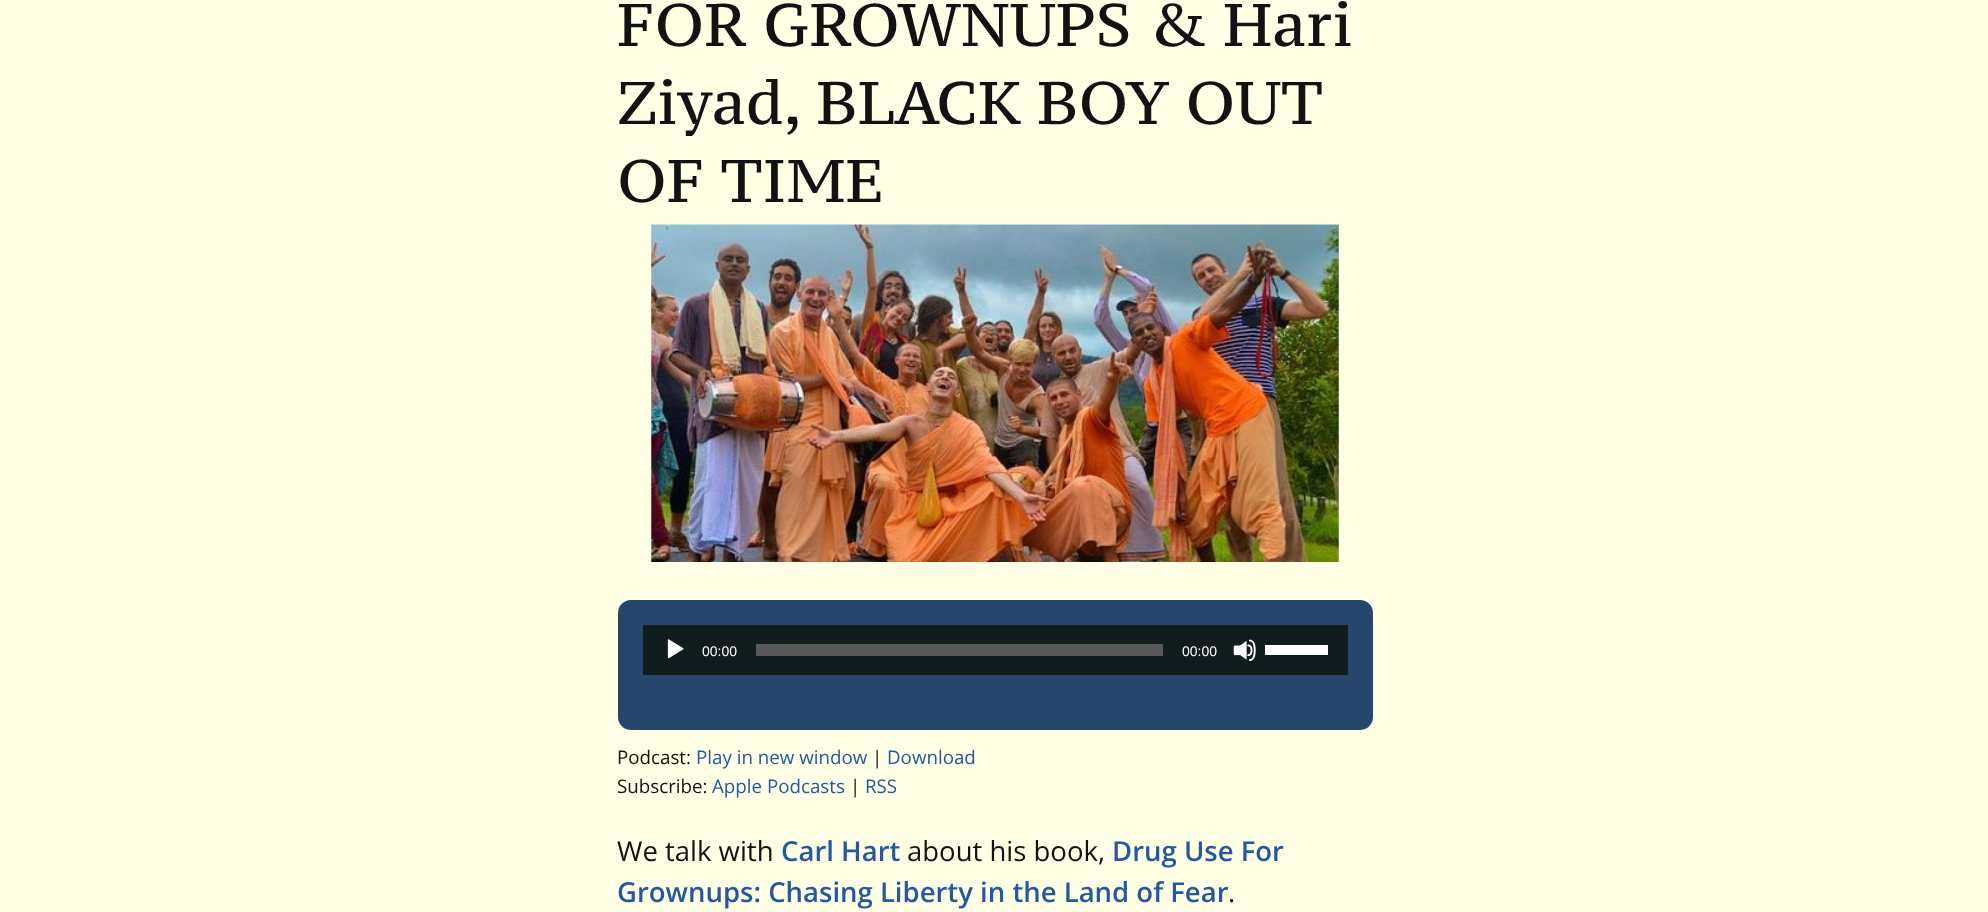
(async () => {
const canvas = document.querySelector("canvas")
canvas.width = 1988
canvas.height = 912
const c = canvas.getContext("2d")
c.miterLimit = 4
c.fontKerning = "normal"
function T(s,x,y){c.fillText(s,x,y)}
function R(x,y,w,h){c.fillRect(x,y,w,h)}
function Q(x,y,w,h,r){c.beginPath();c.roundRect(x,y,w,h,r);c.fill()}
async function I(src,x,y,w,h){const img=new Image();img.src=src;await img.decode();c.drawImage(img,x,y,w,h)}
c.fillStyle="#ffffe5"
R(0,0,1988,912)
c.font="60px PT Serif Caption"
c.fillStyle="#121213"
T("FOR GROWNUPS & Hari",617,46)
T("Ziyad, BLACK BOY OUT",617,124)
T("OF TIME",617,202)
await I("1.png",651,224,688,338)
c.fillStyle="#26466d"
Q(618,600,755,130,13)
c.fillStyle="#111c1f"
R(643,625,705,50)
await I("2.png",667,639,17,20)
c.font="14px Liberation Sans"
c.fillStyle="#fff"
T("00:00",702,656)
c.fillStyle="#595959"
R(756,644,407,12)
c.fillStyle="#fff"
T("00:00",1182,656)
await I("3.png",1233,639,23,22)
R(1265,645,63,10)
c.font="18.75px Open Sans"
c.fillStyle="#121213"
T("Podcast:",617,764)
c.fillStyle="#2458a1"
T("Play in new window",696,764)
c.fillStyle="#121213"
T("|",872,764)
c.fillStyle="#2458a1"
T("Download",887,764)
c.fillStyle="#121213"
T("Subscribe:",617,793)
c.fillStyle="#2458a1"
T("Apple Podcasts",712,793)
c.fillStyle="#121213"
T("|",850,793)
c.fillStyle="#2458a1"
T("RSS",865,793)
c.font="27.5px Open Sans"
c.fillStyle="#121213"
T("We talk with",617,861)
c.font="600 27.5px Open Sans"
c.fillStyle="#2458a1"
T("Carl Hart",781,861)
c.font="27.5px Open Sans"
c.fillStyle="#121213"
T("about his book,",907,861)
c.font="600 27.5px Open Sans"
c.fillStyle="#2458a1"
T("Drug Use For",1112,861)
T("Grownups: Chasing Liberty in the Land of Fear",617,902)
c.font="27.5px Open Sans"
c.fillStyle="#121213"
T(".",1228,902)
})()
